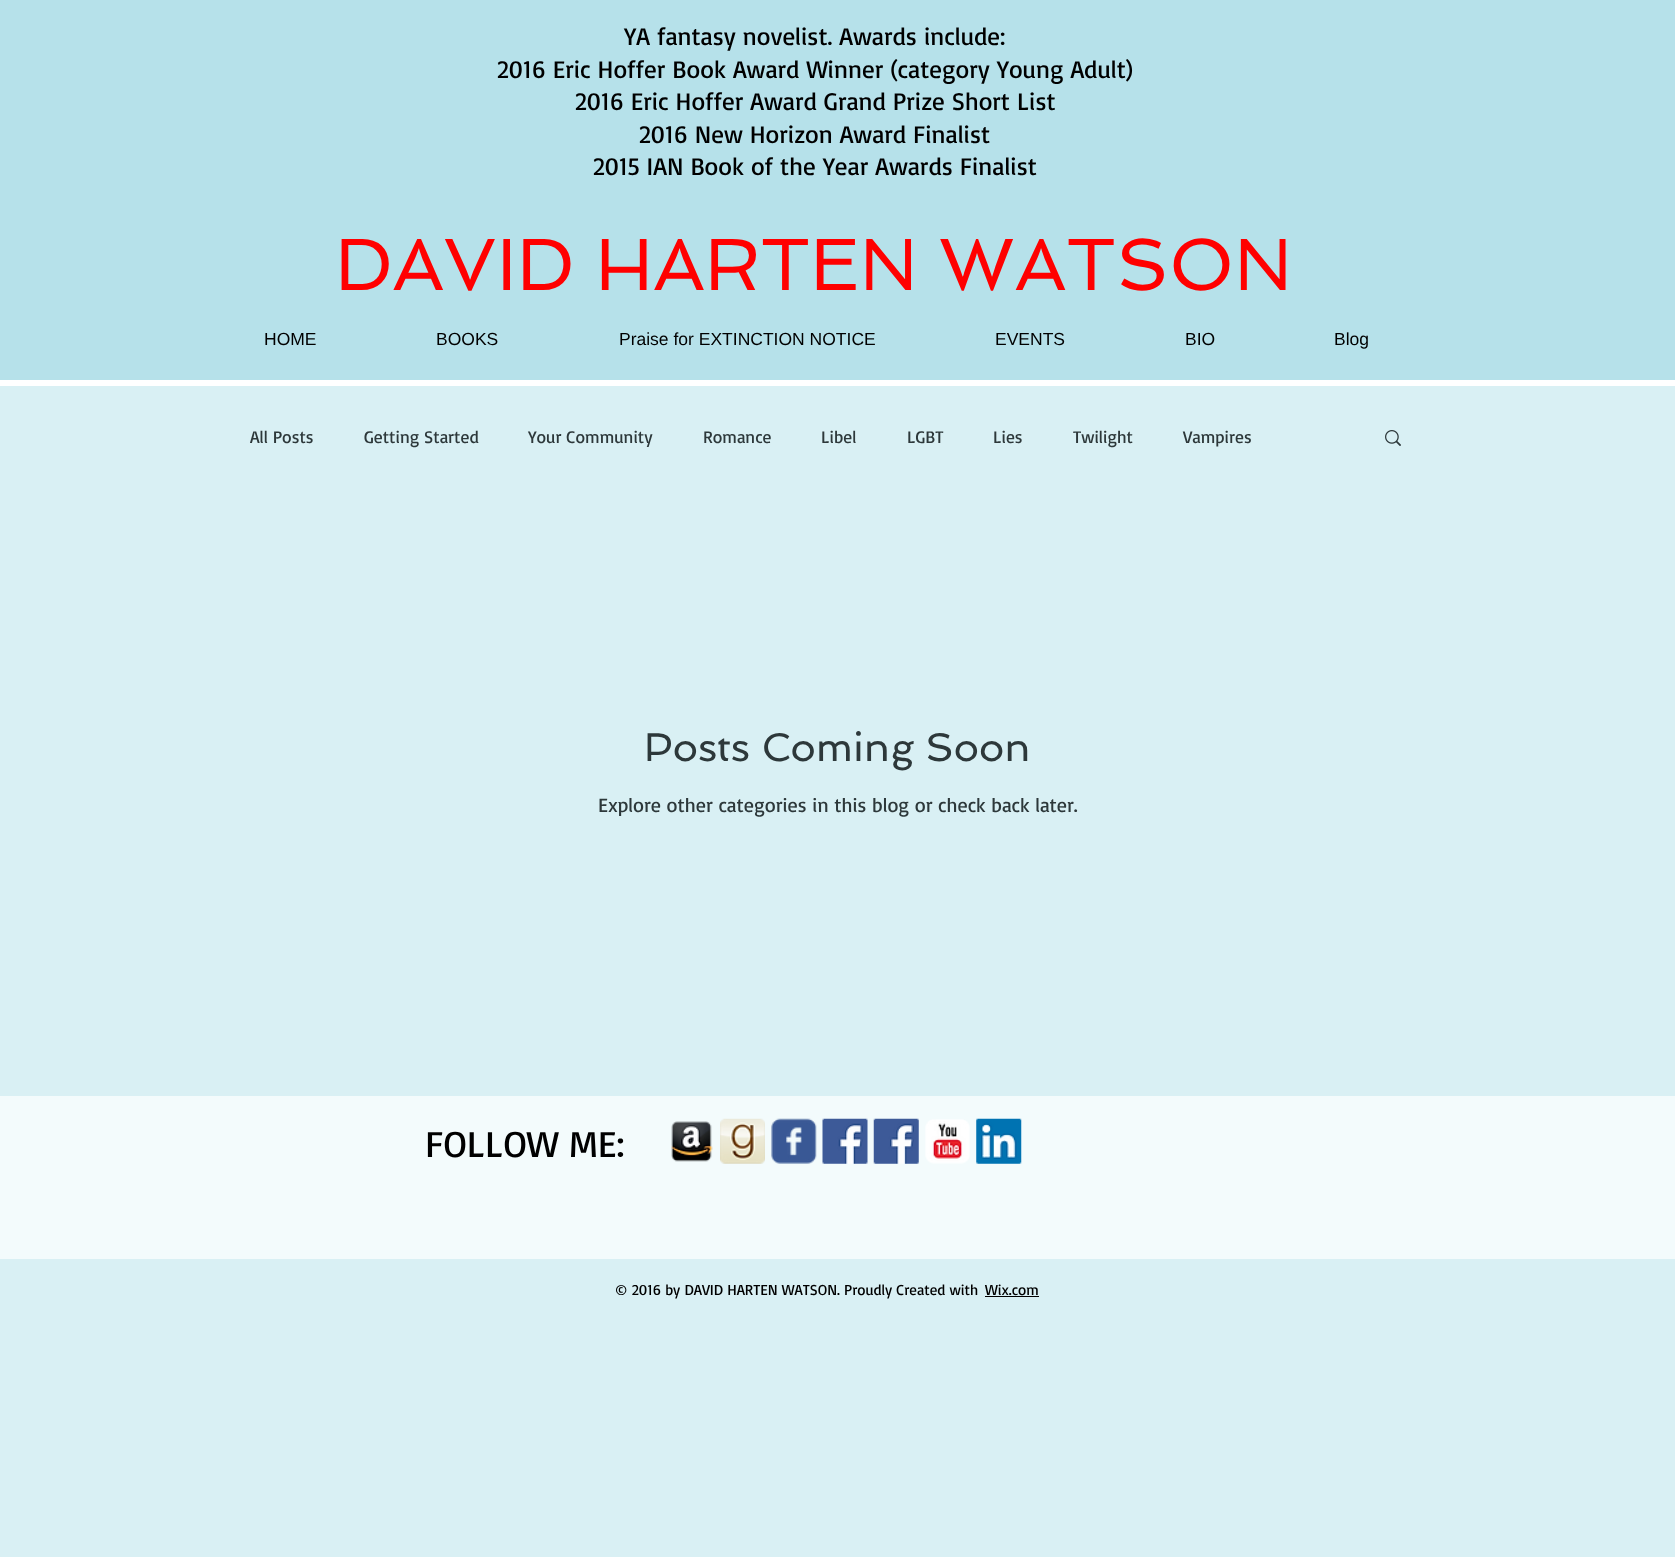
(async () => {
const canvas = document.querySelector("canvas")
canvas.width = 1675
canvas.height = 1557
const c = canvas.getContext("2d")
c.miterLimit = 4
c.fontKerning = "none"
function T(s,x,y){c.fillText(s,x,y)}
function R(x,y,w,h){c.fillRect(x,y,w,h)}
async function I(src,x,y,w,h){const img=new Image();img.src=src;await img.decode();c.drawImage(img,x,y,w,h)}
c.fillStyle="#d9f0f4"
R(0,0,1675,1557)
c.fillStyle="#b6e1ea"
R(0,0,1675,380)
c.fillStyle="#fff"
R(0,380,1675,6)
c.font="25px Basic"
c.fillStyle="#000"
T("YA fantasy novelist. Awards include:",624,45)
T("2016 Eric Hoffer Book Award Winner (category Young Adult)",497,78)
T("2016 Eric Hoffer Award Grand Prize Short List",575,110)
T("2016 New Horizon Award Finalist",639,143)
T("2015 IAN Book of the Year Awards Finalist",593,175)
c.font="73.75px Spinnaker"
c.fillStyle="#f00"
T("DAVID HARTEN WATSON",335,290)
c.font="17.5px Liberation Sans"
c.fillStyle="#000"
T("HOME",264,345)
T("BOOKS",436,345)
T("Praise for EXTINCTION NOTICE",619,345)
T("EVENTS",995,345)
T("BIO",1185,345)
T("Blog",1334,345)
c.font="17.5px Basic"
c.fillStyle="#2d383a"
T("All Posts",250,443)
T("Getting Started",364,443)
T("Your Community",528,443)
T("Romance",703,443)
T("Libel",821,443)
T("LGBT",907,443)
T("Lies",993,443)
T("Twilight",1073,443)
T("Vampires",1183,443)
await I("1.png",1385,430,16,16)
c.font="40px Spinnaker"
T("Posts Coming Soon",644,761)
c.font="20px Basic"
T("Explore other categories in this blog or check back later.",598,812)
c.fillStyle="#f3fbfc"
R(0,1096,1675,163)
c.font="37.5px Basic"
c.fillStyle="#000"
T("FOLLOW ME:",425,1157)
await I("2.png",671,1121,42,41)
await I("3.png",720,1118,45,46)
await I("4.png",771,1118,46,46)
await I("5.png",822,1118,46,46)
await I("6.png",873,1118,46,46)
await I("7.png",925,1119,45,45)
await I("8.png",976,1118,46,46)
c.font="15px Basic"
T("© 2016 by DAVID HARTEN WATSON. Proudly Created with",615,1295)
T("Wix.com",985,1295)
R(985,1296,54,1)
})()
